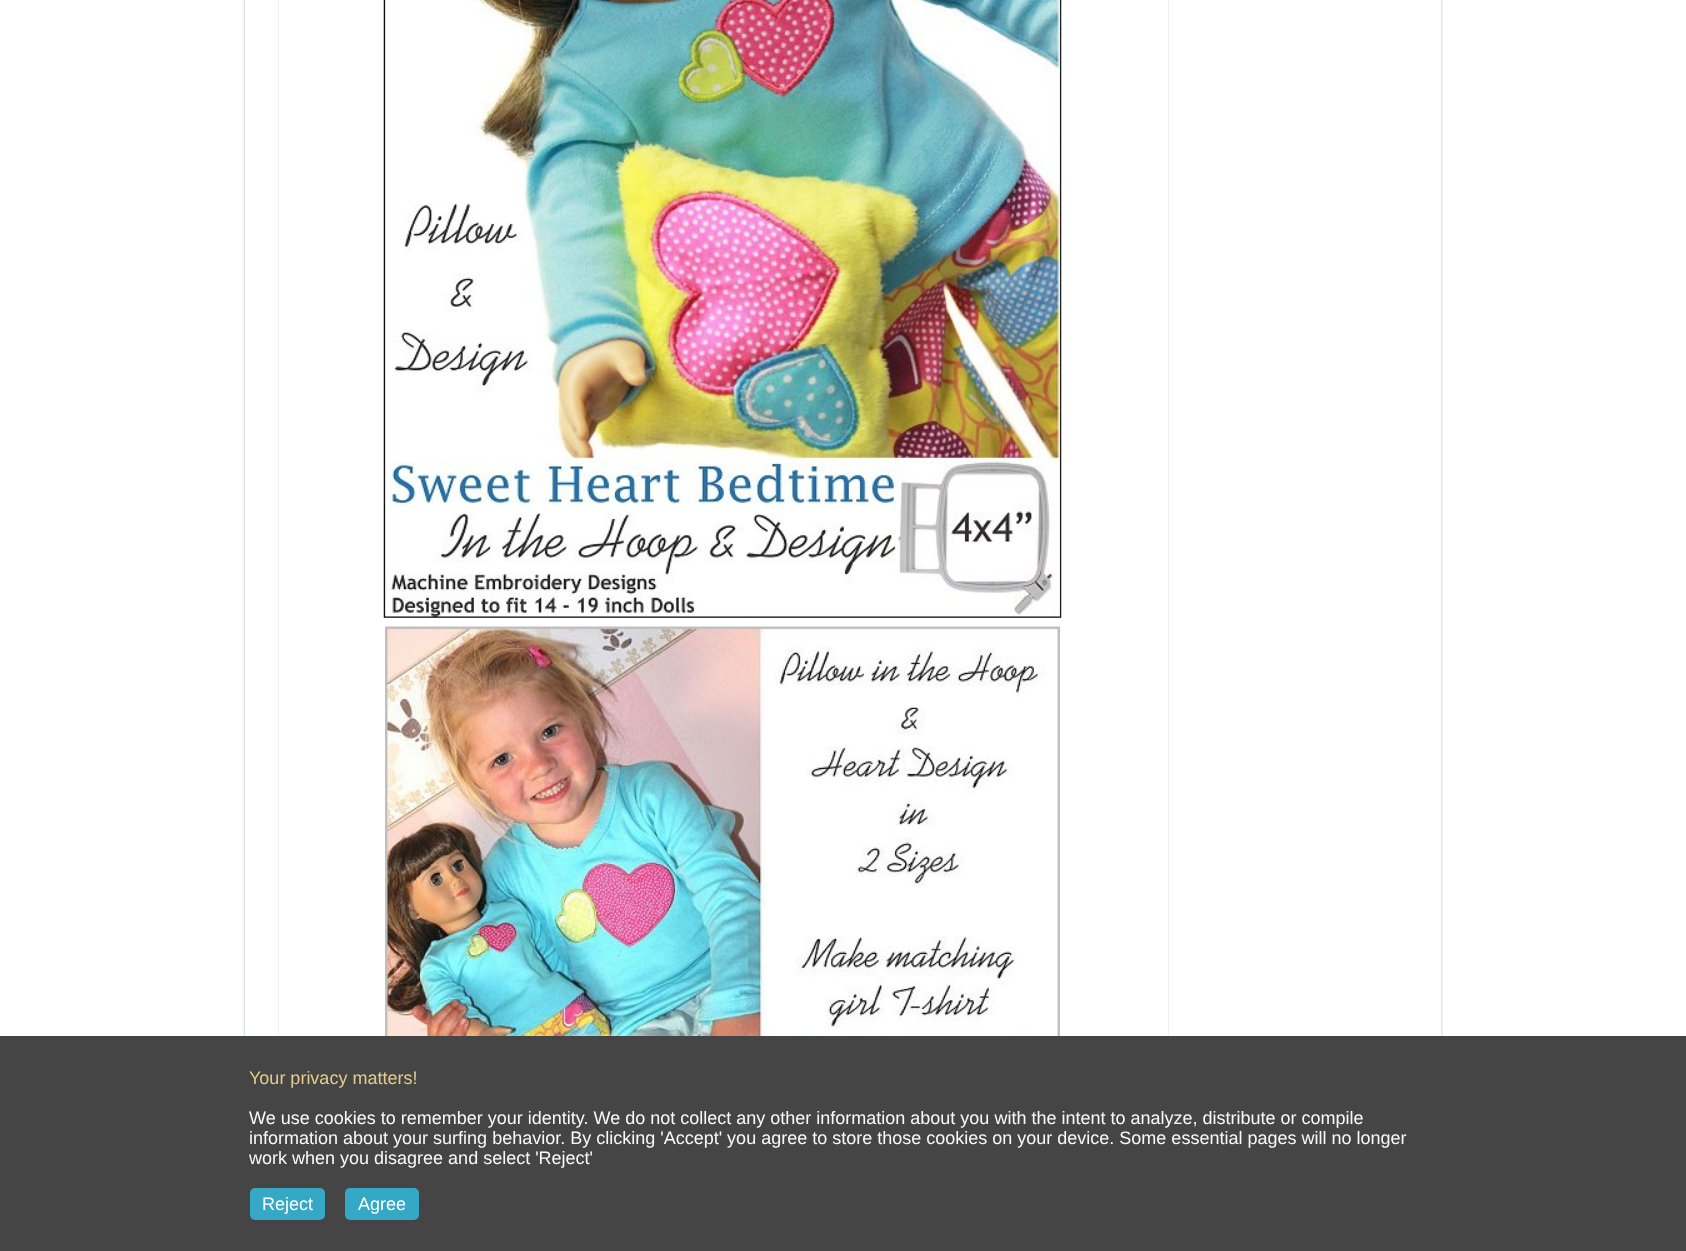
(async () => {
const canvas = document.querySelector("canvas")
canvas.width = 1686
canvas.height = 1251
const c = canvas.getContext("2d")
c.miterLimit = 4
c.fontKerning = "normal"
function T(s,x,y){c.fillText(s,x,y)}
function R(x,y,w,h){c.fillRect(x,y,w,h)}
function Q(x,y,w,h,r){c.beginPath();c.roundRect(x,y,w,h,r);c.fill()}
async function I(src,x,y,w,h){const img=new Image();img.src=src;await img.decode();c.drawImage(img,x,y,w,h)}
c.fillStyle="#fff"
R(0,0,1686,1251)
await I("1.png",243,0,2,1036)
c.strokeStyle="#f0f0f0"
c.strokeRect(278.5,-.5,890,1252)
await I("2.png",383,0,679,618)
await I("3.png",385,626,675,410)
await I("4.png",1441,0,2,1036)
c.fillStyle="#454545"
R(0,1036,1686,215)
c.font="18px Liberation Sans"
c.fillStyle="#e4cc8b"
T("Your privacy matters!",249,1084)
c.fillStyle="#f9f9f9"
T("We use cookies to remember your identity. We do not collect any other information about you with the intent to analyze, distribute or compile",249,1124)
T("information about your surfing behavior. By clicking 'Accept' you agree to store those cookies on your device. Some essential pages will no longer",249,1144)
T("work when you disagree and select 'Reject'",249,1164)
c.fillStyle="#34a8c4"
Q(250,1188,75,32,5)
c.fillStyle="#fff"
T("Reject",262,1210)
c.fillStyle="#34a8c4"
Q(345,1188,74,32,5)
c.fillStyle="#fff"
T("Agree",358,1210)
})()
